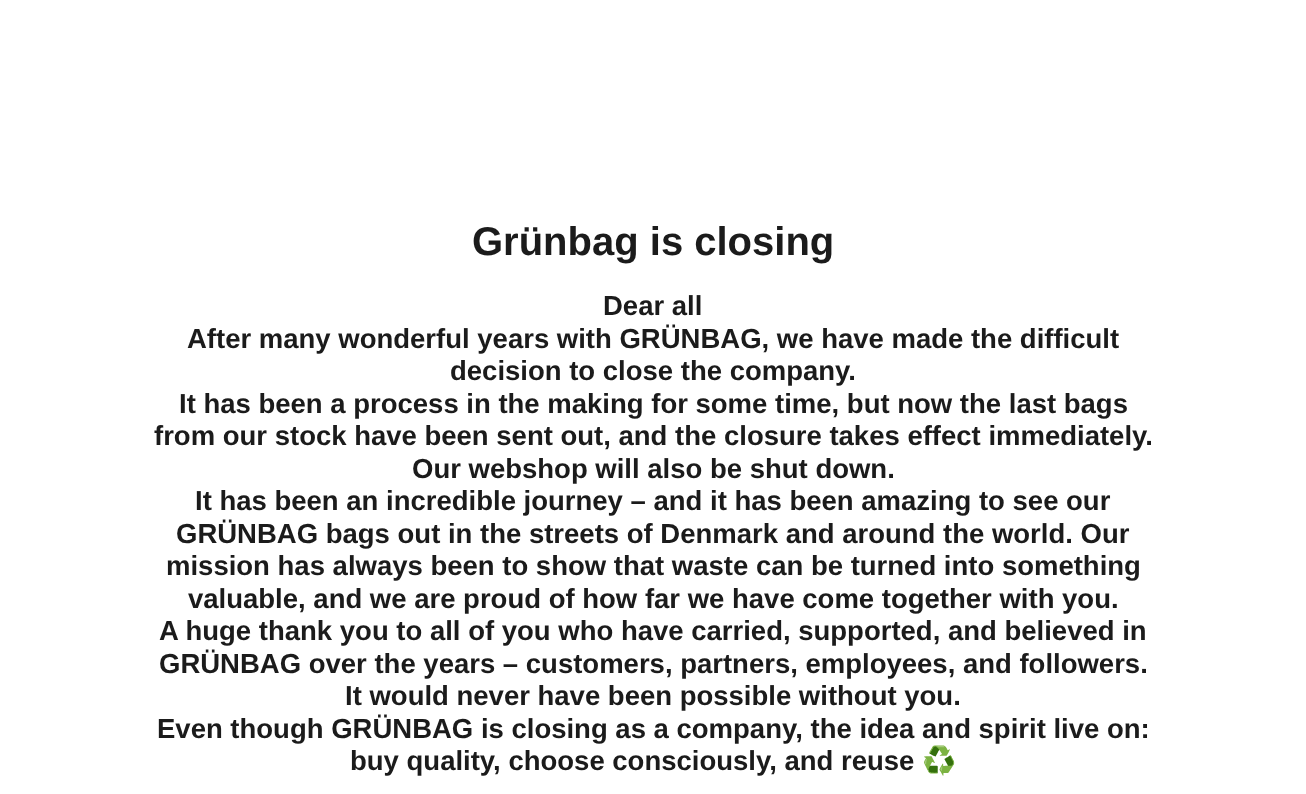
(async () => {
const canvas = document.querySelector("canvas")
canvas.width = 1306
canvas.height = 794
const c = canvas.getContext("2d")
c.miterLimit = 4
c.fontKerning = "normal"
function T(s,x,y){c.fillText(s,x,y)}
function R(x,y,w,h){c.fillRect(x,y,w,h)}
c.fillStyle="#fff"
R(0,0,1306,794)
c.font="bold 40px Liberation Sans"
c.fillStyle="#1b1b1b"
T("Grünbag is closing",472,255)
c.font="bold 27.5px Liberation Sans"
T("Dear all",603,315)
T("After many wonderful years with GRÜNBAG, we have made the difficult",187,348)
T("decision to close the company.",450,380)
T("It has been a process in the making for some time, but now the last bags",179,413)
T("from our stock have been sent out, and the closure takes effect immediately.",154,445)
T("Our webshop will also be shut down.",412,478)
T("It has been an incredible journey – and it has been amazing to see our",195,510)
T("GRÜNBAG bags out in the streets of Denmark and around the world. Our",176,543)
T("mission has always been to show that waste can be turned into something",166,575)
T("valuable, and we are proud of how far we have come together with you.",188,608)
T("A huge thank you to all of you who have carried, supported, and believed in",159,640)
T("GRÜNBAG over the years – customers, partners, employees, and followers.",159,673)
T("It would never have been possible without you.",345,705)
T("Even though GRÜNBAG is closing as a company, the idea and spirit live on:",157,738)
T("buy quality, choose consciously, and reuse",350,770)
c.font="bold 27.5px Noto Color Emoji"
T("♻️",922,770)
})()
